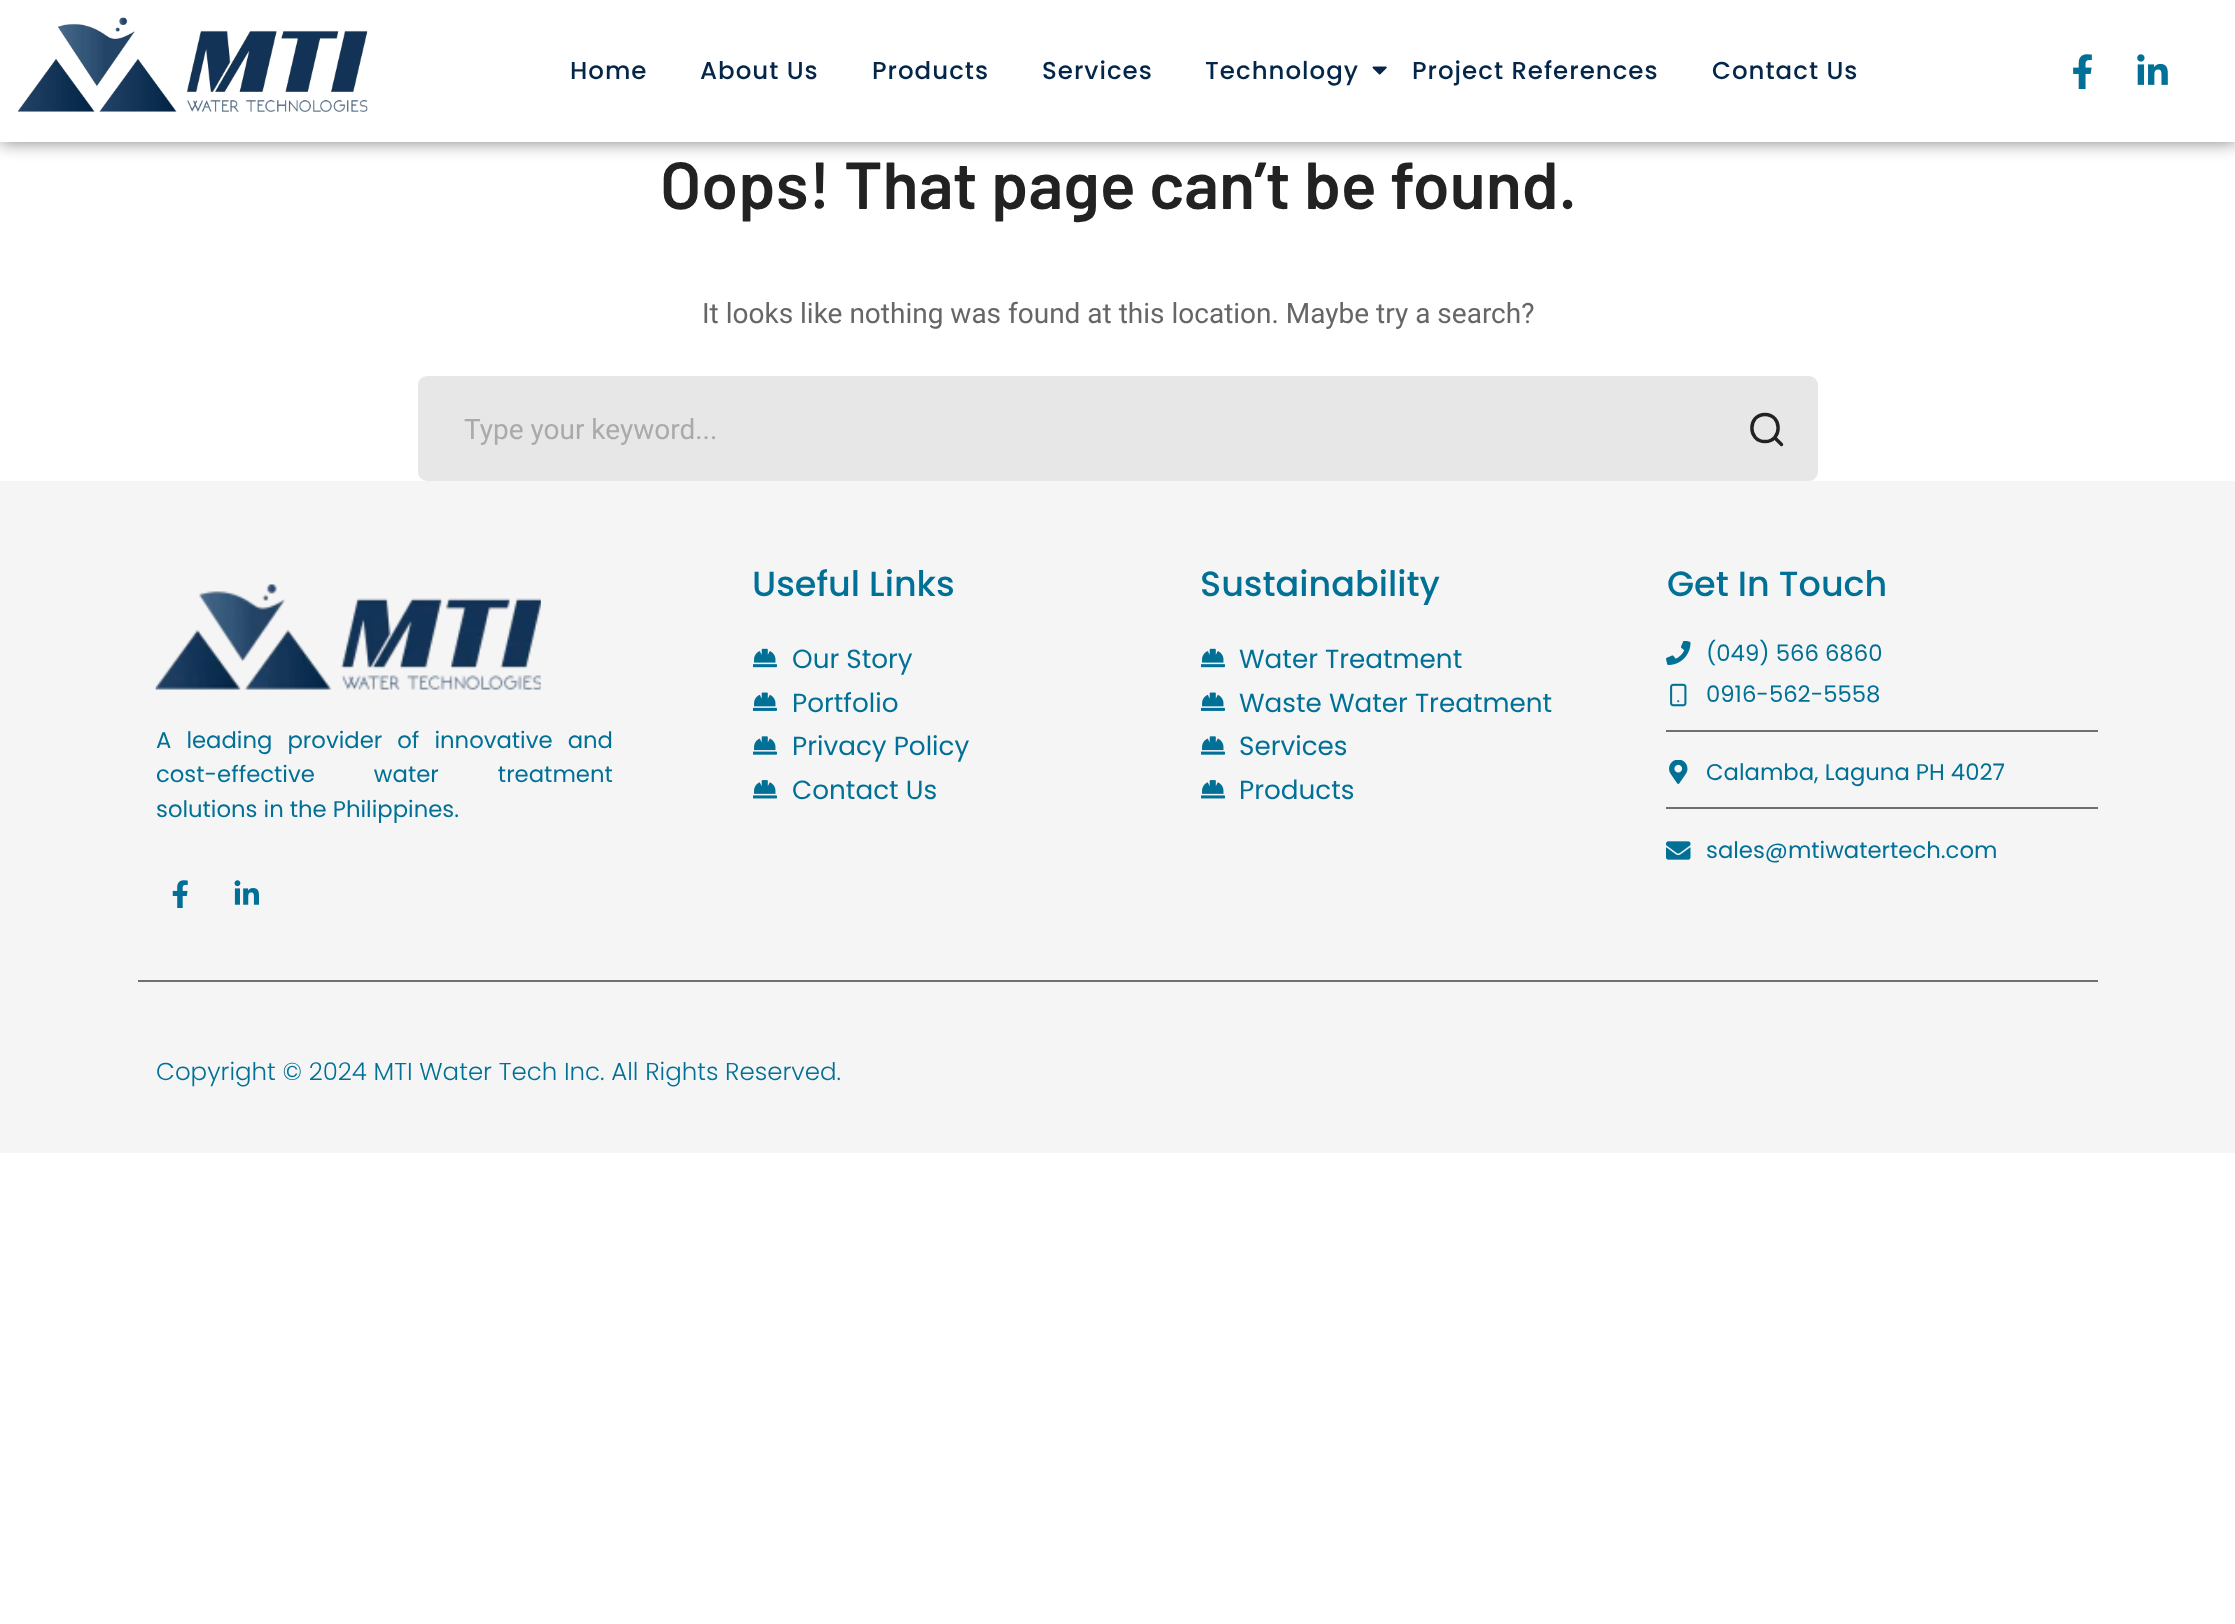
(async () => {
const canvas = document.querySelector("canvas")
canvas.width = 2235
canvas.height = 1624
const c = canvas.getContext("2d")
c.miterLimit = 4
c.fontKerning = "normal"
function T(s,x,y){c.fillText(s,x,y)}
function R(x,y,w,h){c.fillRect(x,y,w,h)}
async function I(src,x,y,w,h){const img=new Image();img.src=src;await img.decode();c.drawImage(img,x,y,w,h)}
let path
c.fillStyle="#fff"
R(0,0,2235,1624)
c.fillStyle="#00000080"
c.filter="blur(9px)"
c.beginPath()
c.roundRect(0,0,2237,142,2)
c.fill()
c.filter="none"
c.fillStyle="#fff"
R(0,0,2235,142)
await I("1.png",17,17,351,95)
c.letterSpacing="1px"
c.font="500 24.5px Poppins"
c.fillStyle="#042649"
T("Home",570,79)
T("About Us",700,79)
T("Products",872,79)
T("Services",1042,79)
T("Technology",1205,79)
await I("2.png",1372,66,15,9)
T("Project References",1412,79)
T("Contact Us",1712,79)
await I("3.png",2073,54,19,35)
await I("4.png",2137,54,31,31)
c.letterSpacing="0px"
c.font="600 66.5px Barlow"
c.fillStyle="#222"
T("Oops! That page can’t be found.",660,209)
c.font="28px Roboto"
c.fillStyle="#666"
T("It looks like nothing was found at this location. Maybe try a search?",702,323)
c.fillStyle="#e7e7e7"
c.beginPath()
c.roundRect(419,377,1398,103,8)
c.fill()
c.strokeStyle="#e7e7e7"
c.lineWidth=2
c.stroke()
c.fillStyle="#aaa"
T("Type your keyword...",464,439)
path = new Path2D("M1765 414.5c17.5 0 17.5 27 0 27c-17.5 0-17.5-27 0-27zm16.5 30l-7-7")
c.strokeStyle="#222"
c.lineWidth=3.4
c.lineCap="round"
c.lineJoin="round"
c.stroke(path)
c.fillStyle="#f5f5f5"
R(0,481,2235,672)
await I("5.png",155,584,386,106)
c.wordSpacing="9px"
c.font="22.75px Poppins"
c.fillStyle="#007096"
T("A leading provider of innovative and",156,748)
c.wordSpacing="53px"
T("cost-effective water treatment",156,782)
c.wordSpacing="0px"
T("solutions in the Philippines.",156,817)
await I("6.png",172,880,16,28)
await I("7.png",234,880,25,25)
c.font="500 35px Poppins"
T("Useful Links",752,596)
await I("8.png",753,648,24,20)
c.font="26.25px Poppins"
T("Our Story",792,668)
await I("9.png",753,692,24,19)
T("Portfolio",792,712)
await I("10.png",753,736,24,19)
T("Privacy Policy",792,755)
await I("11.png",753,780,24,19)
T("Contact Us",792,799)
c.font="500 35px Poppins"
T("Sustainability",1200,596)
await I("8.png",1201,648,24,20)
c.font="26.25px Poppins"
T("Water Treatment",1239,668)
await I("9.png",1201,692,24,19)
T("Waste Water Treatment",1239,712)
await I("10.png",1201,736,24,19)
T("Services",1239,755)
await I("11.png",1201,780,24,19)
T("Products",1239,799)
c.font="500 35px Poppins"
T("Get In Touch",1667,596)
await I("12.png",1666,641,25,24)
c.font="22.75px Poppins"
T("(049) 566 6860",1706,661)
await I("13.png",1670,683,17,24)
T("0916-562-5558",1706,702)
c.fillStyle="#707070"
R(1666,730,432,2)
await I("14.png",1669,760,19,24)
c.fillStyle="#007096"
T("Calamba, Laguna PH 4027",1706,780)
c.fillStyle="#707070"
R(1666,807,432,2)
await I("15.png",1666,841,25,19)
c.fillStyle="#007096"
T("sales@mtiwatertech.com",1706,858)
c.fillStyle="#707070"
R(138,980,1960,2)
c.font="300 24.5px Poppins"
c.fillStyle="#007096"
T("Copyright © 2024 MTI Water Tech Inc. All Rights Reserved.",156,1080)
})()
